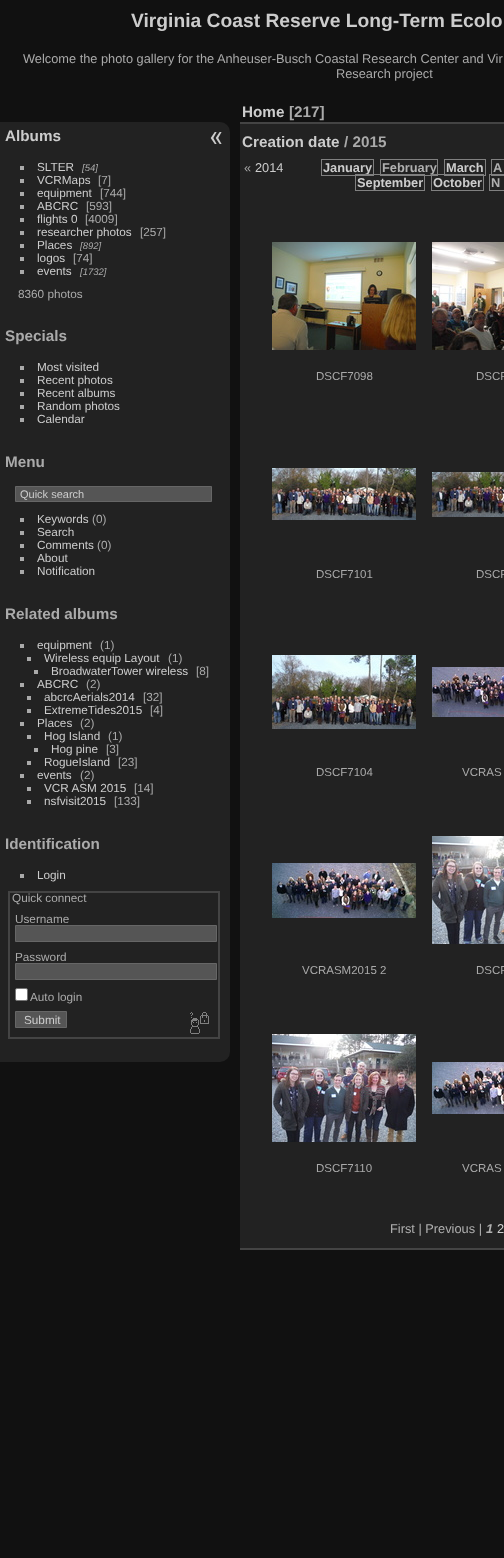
(async () => {
const canvas = document.querySelector("canvas")
canvas.width = 504
canvas.height = 1558
const c = canvas.getContext("2d")
c.miterLimit = 4
c.fontKerning = "normal"
function T(s,x,y){c.fillText(s,x,y)}
function R(x,y,w,h){c.fillRect(x,y,w,h)}
async function I(src,x,y,w,h){const img=new Image();img.src=src;await img.decode();c.drawImage(img,x,y,w,h)}
c.fillStyle="#111"
R(0,0,504,1558)
c.font="bold 19.25px Liberation Sans"
c.fillStyle="#ccc"
T("Virginia Coast Reserve Long-Term Ecolo",131,27)
c.font="12.8px Liberation Sans"
c.fillStyle="#aaa"
T("Welcome the photo gallery for the Anheuser-Busch Coastal Research Center and Vir",23,63)
T("Research project",336,78)
c.fillStyle="#222"
c.beginPath()
c.roundRect(0,122,230,940,[0,10,10,0])
c.fill()
c.font="bold 15.25px Liberation Sans"
c.fillStyle="#ccc"
T("Albums",5,141)
c.fillStyle="#aaa"
R(20,166,4,4)
c.font="11.75px Liberation Sans"
c.fillStyle="#ccc"
T("SLTER",37,171)
c.font="italic 9.5px Liberation Sans"
c.fillStyle="#aaa"
T("[54]",82,171)
R(20,179,4,4)
c.font="11.75px Liberation Sans"
c.fillStyle="#ccc"
T("VCRMaps",37,184)
c.fillStyle="#aaa"
T("[7]",98,184)
R(20,192,4,4)
c.fillStyle="#ccc"
T("equipment",37,197)
c.fillStyle="#aaa"
T("[744]",100,197)
R(20,205,4,4)
c.fillStyle="#ccc"
T("ABCRC",37,210)
c.fillStyle="#aaa"
T("[593]",86,210)
R(20,218,4,4)
c.fillStyle="#ccc"
T("flights 0",37,223)
c.fillStyle="#aaa"
T("[4009]",85,223)
R(20,231,4,4)
c.fillStyle="#ccc"
T("researcher photos",37,236)
c.fillStyle="#aaa"
T("[257]",140,236)
R(20,244,4,4)
c.fillStyle="#ccc"
T("Places",37,249)
c.font="italic 9.5px Liberation Sans"
c.fillStyle="#aaa"
T("[892]",80,249)
R(20,257,4,4)
c.font="11.75px Liberation Sans"
c.fillStyle="#ccc"
T("logos",37,262)
c.fillStyle="#aaa"
T("[74]",73,262)
R(20,270,4,4)
c.fillStyle="#ccc"
T("events",37,275)
c.font="italic 9.5px Liberation Sans"
c.fillStyle="#aaa"
T("[1732]",80,275)
c.font="11.75px Liberation Sans"
T("8360 photos",18,298)
c.font="bold 15.25px Liberation Sans"
T("Specials",5,341)
R(20,366,4,4)
c.font="11.75px Liberation Sans"
c.fillStyle="#ccc"
T("Most visited",37,371)
c.fillStyle="#aaa"
R(20,379,4,4)
c.fillStyle="#ccc"
T("Recent photos",37,384)
c.fillStyle="#aaa"
R(20,392,4,4)
c.fillStyle="#ccc"
T("Recent albums",37,397)
c.fillStyle="#aaa"
R(20,405,4,4)
c.fillStyle="#ccc"
T("Random photos",37,410)
c.fillStyle="#aaa"
R(20,418,4,4)
c.fillStyle="#ccc"
T("Calendar",37,423)
c.font="bold 15.25px Liberation Sans"
c.fillStyle="#aaa"
T("Menu",5,467)
c.fillStyle="#555"
c.beginPath()
c.rect(15.5,486.5,196,15)
c.fill()
c.strokeStyle="#666"
c.stroke()
c.font="11px Liberation Sans"
c.fillStyle="#ccc"
T("Quick search",20,498)
c.fillStyle="#aaa"
R(20,518,4,4)
c.font="11.75px Liberation Sans"
c.fillStyle="#ccc"
T("Keywords",37,523)
c.fillStyle="#aaa"
T("(0)",92,523)
R(20,531,4,4)
c.fillStyle="#ccc"
T("Search",37,536)
c.fillStyle="#aaa"
R(20,544,4,4)
c.fillStyle="#ccc"
T("Comments",37,549)
c.fillStyle="#aaa"
T("(0)",97,549)
R(20,557,4,4)
c.fillStyle="#ccc"
T("About",37,562)
c.fillStyle="#aaa"
R(20,570,4,4)
c.fillStyle="#ccc"
T("Notification",37,575)
c.font="bold 15.25px Liberation Sans"
c.fillStyle="#aaa"
T("Related albums",5,619)
R(20,644,4,4)
c.font="11.75px Liberation Sans"
c.fillStyle="#ccc"
T("equipment",37,649)
c.fillStyle="#aaa"
T("(1)",100,649)
R(27,657,4,4)
c.fillStyle="#ccc"
T("Wireless equip Layout",44,662)
c.fillStyle="#aaa"
T("(1)",168,662)
R(34,670,4,4)
c.fillStyle="#ccc"
T("BroadwaterTower wireless",51,675)
c.fillStyle="#aaa"
T("[8]",196,675)
R(20,683,4,4)
c.fillStyle="#ccc"
T("ABCRC",37,688)
c.fillStyle="#aaa"
T("(2)",86,688)
R(27,696,4,4)
c.fillStyle="#ccc"
T("abcrcAerials2014",44,701)
c.fillStyle="#aaa"
T("[32]",143,701)
R(27,709,4,4)
c.fillStyle="#ccc"
T("ExtremeTides2015",44,714)
c.fillStyle="#aaa"
T("[4]",150,714)
R(20,722,4,4)
c.fillStyle="#ccc"
T("Places",37,727)
c.fillStyle="#aaa"
T("(2)",80,727)
R(27,735,4,4)
c.fillStyle="#ccc"
T("Hog Island",44,740)
c.fillStyle="#aaa"
T("(1)",108,740)
R(34,748,4,4)
c.fillStyle="#ccc"
T("Hog pine",51,753)
c.fillStyle="#aaa"
T("[3]",106,753)
R(27,761,4,4)
c.fillStyle="#ccc"
T("RogueIsland",44,766)
c.fillStyle="#aaa"
T("[23]",118,766)
R(20,774,4,4)
c.fillStyle="#ccc"
T("events",37,779)
c.fillStyle="#aaa"
T("(2)",80,779)
R(27,787,4,4)
c.fillStyle="#ccc"
T("VCR ASM 2015",44,792)
c.fillStyle="#aaa"
T("[14]",134,792)
R(27,800,4,4)
c.fillStyle="#ccc"
T("nsfvisit2015",44,805)
c.fillStyle="#aaa"
T("[133]",114,805)
c.font="bold 15.25px Liberation Sans"
T("Identification",5,849)
R(20,874,4,4)
c.font="11.75px Liberation Sans"
c.fillStyle="#ccc"
T("Login",37,879)
c.strokeStyle="#444"
c.lineWidth=2
c.strokeRect(9,892,210,146)
c.fillStyle="#aaa"
T("Quick connect",12,902)
T("Username",15,923)
c.fillStyle="#555"
c.beginPath()
c.rect(15.5,925.5,201,16)
c.fill()
c.strokeStyle="#666"
c.lineWidth=1
c.stroke()
c.fillStyle="#aaa"
T("Password",15,961)
c.fillStyle="#555"
c.beginPath()
c.rect(15.5,963.5,201,16)
c.fill()
c.stroke()
c.fillStyle="#fff"
c.beginPath()
c.roundRect(15.5,988.5,12,12,1.5)
c.fill()
c.strokeStyle="#767676"
c.stroke()
c.fillStyle="#aaa"
T("Auto login",30,1001)
c.fillStyle="#555"
c.beginPath()
c.rect(15.5,1011.5,51,16)
c.fill()
c.strokeStyle="#666"
c.stroke()
c.fillStyle="#ccc"
T("Submit",24,1024)
await I("1.png",190,1012,19,22)
await I("2.png",210,132,12,12)
c.fillStyle="#222"
R(240,124,264,1124)
c.fillStyle="#444"
R(240,1248,264,2)
c.font="bold 15.25px Liberation Sans"
c.fillStyle="#ccc"
T("Home",242,117)
c.fillStyle="#aaa"
T("[217]",289,117)
c.fillStyle="#444"
R(240,122,264,2)
c.fillStyle="#ccc"
T("Creation date",242,147)
c.fillStyle="#aaa"
T("/ 2015",344,147)
c.font="12.8px Liberation Sans"
T("«",244,172)
c.fillStyle="#ccc"
T("2014",255,172)
c.strokeStyle="#808080"
c.strokeRect(321.5,159.5,52,16)
c.font="bold 12.8px Liberation Sans"
T("January",323,172)
c.strokeRect(380.5,159.5,57,16)
c.fillStyle="#b0b0b0"
T("February",382,172)
c.strokeRect(444.5,159.5,41,16)
c.fillStyle="#ccc"
T("March",446,172)
c.strokeRect(491.5,159.5,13,16)
c.fillStyle="#b0b0b0"
T("A",493,172)
c.strokeRect(355.5,174.5,69,16)
c.fillStyle="#ccc"
T("September",357,187)
c.strokeRect(431.5,174.5,52,16)
T("October",433,187)
c.strokeRect(489.5,174.5,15,16)
c.fillStyle="#b0b0b0"
T("N",491,187)
await I("3.png",272,242,144,108)
c.font="11.5px Liberation Sans"
c.fillStyle="#aaa"
T("DSCF7098",316,380)
await I("4.png",432,242,72,108)
T("DSCF",476,380)
await I("5.png",272,468,144,52)
T("DSCF7101",316,578)
await I("6.png",432,472,72,45)
T("DSCF",476,578)
await I("7.png",272,655,144,74)
T("DSCF7104",316,776)
await I("8.png",432,667,72,50)
T("VCRAS",462,776)
await I("9.png",272,863,144,55)
T("VCRASM2015 2",302,974)
await I("10.png",432,836,72,108)
T("DSCF",476,974)
await I("11.png",272,1034,144,108)
T("DSCF7110",316,1172)
await I("12.png",432,1062,72,52)
T("VCRAS",462,1172)
c.font="12.8px Liberation Sans"
c.fillStyle="#b0b0b0"
T("First | Previous |",390,1233)
c.font="italic bold 12.8px Liberation Sans"
T("1",486,1233)
c.font="12.8px Liberation Sans"
c.fillStyle="#ccc"
T("2",497,1233)
})()
